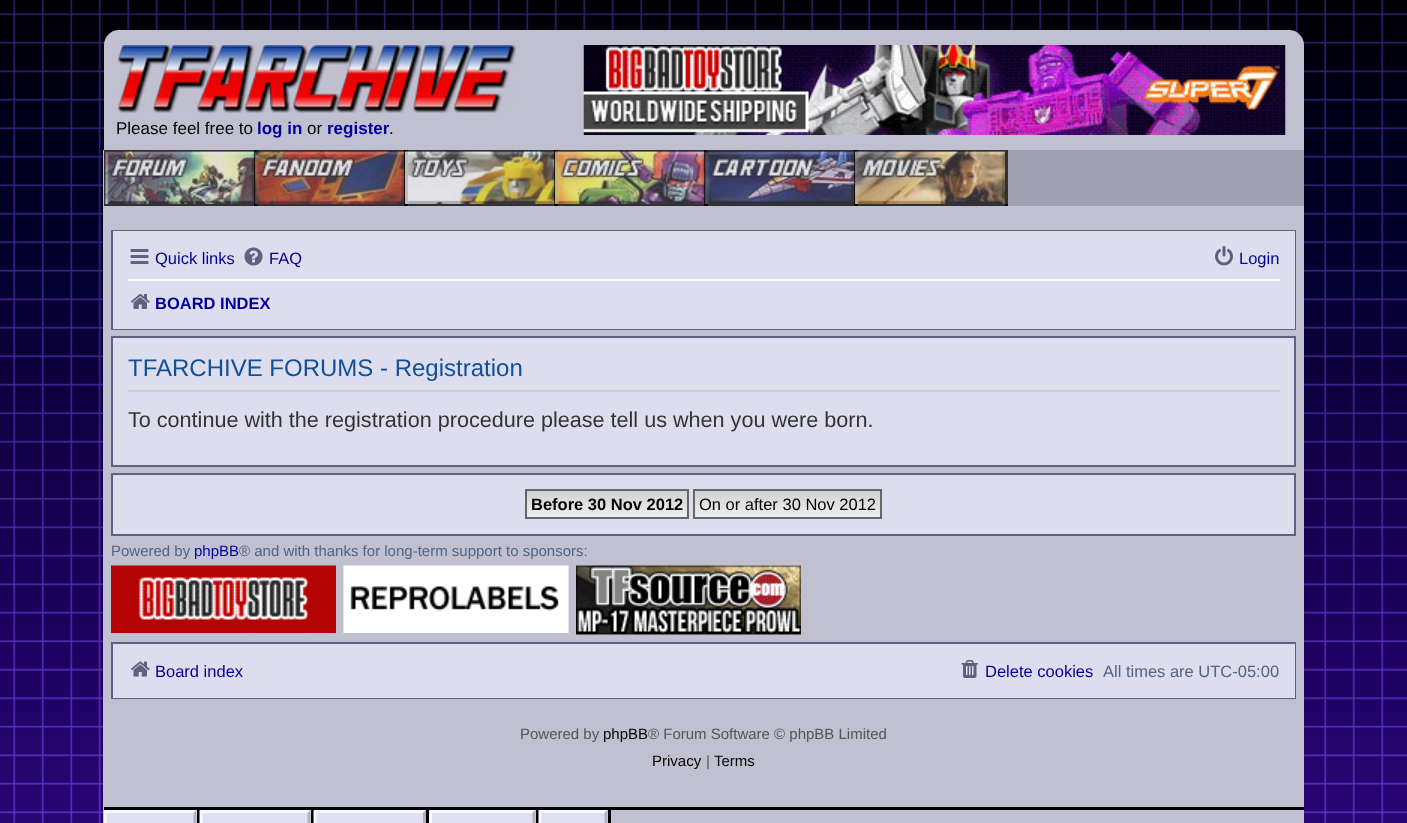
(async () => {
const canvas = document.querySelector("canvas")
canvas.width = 1407
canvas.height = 823
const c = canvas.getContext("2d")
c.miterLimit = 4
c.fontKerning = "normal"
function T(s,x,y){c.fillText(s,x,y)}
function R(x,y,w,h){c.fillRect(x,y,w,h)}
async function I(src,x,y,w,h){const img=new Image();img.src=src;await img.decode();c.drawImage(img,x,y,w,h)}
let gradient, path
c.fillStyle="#fff"
R(0,0,1407,823)
await I("1.png",0,0,1407,30)
await I("2.png",0,30,1407,793)
c.fillStyle="#c0c0d0"
c.beginPath()
c.roundRect(104,30,1200,120,[15,15,0,0])
c.fill()
await I("3.png",118,45,398,68)
c.font="17px Liberation Sans"
c.fillStyle="#000"
T("Please feel free to",116,134)
c.font="bold 17px Liberation Sans"
c.fillStyle="#009"
T("log in",257,134)
c.font="17px Liberation Sans"
c.fillStyle="#000"
T("or",307,134)
c.font="bold 17px Liberation Sans"
c.fillStyle="#009"
T("register",327,134)
c.font="17px Liberation Sans"
c.fillStyle="#000"
T(".",389,134)
await I("4.png",583,45,703,90)
c.fillStyle="#c0c0d0"
R(103,150,1201,673)
c.fillStyle="#a0a0b0"
R(106,150,1198,56)
c.fillStyle="#303035"
R(104,150,154,2)
R(255,150,3,56)
R(104,204,154,2)
R(104,150,2,56)
await I("5.png",105,151,150,53)
c.fillStyle="#000000b3"
R(254,150,154,2)
c.fillStyle="#303035"
R(405,150,3,56)
c.fillStyle="#000000b3"
R(254,204,154,2)
R(254,150,2,56)
await I("6.png",255,151,150,53)
R(404,150,154,2)
c.fillStyle="#303035"
R(555,150,3,56)
c.fillStyle="#000000b3"
R(404,204,154,2)
R(404,150,2,56)
await I("7.png",405,151,150,53)
R(554,150,154,2)
c.fillStyle="#303035"
R(705,150,3,56)
c.fillStyle="#000000b3"
R(554,204,154,2)
R(554,150,2,56)
await I("8.png",555,151,150,53)
R(704,150,154,2)
c.fillStyle="#303035"
R(855,150,3,56)
c.fillStyle="#000000b3"
R(704,204,154,2)
R(704,150,2,56)
await I("9.png",705,151,150,53)
R(854,150,154,2)
c.fillStyle="#303035"
R(1005,150,3,56)
c.fillStyle="#000000b3"
R(854,204,154,2)
R(854,150,2,56)
await I("10.png",855,151,150,53)
c.strokeStyle="#606080"
c.lineWidth=2
c.strokeRect(112,231,1183,98)
c.fillStyle="#dde"
R(113,231,1182,98)
await I("11.png",130,249,19,15)
c.font="16.5px Liberation Sans"
c.fillStyle="#009"
T("Quick links",155,264)
await I("12.png",244,247,19,19)
T("FAQ",269,264)
await I("13.png",1215,246,18,20)
T("Login",1239,264)
c.fillStyle="#fff"
R(128,279,1152,2)
await I("14.png",130,294,20,15)
c.font="bold 16.5px Liberation Sans"
c.fillStyle="#009"
T("BOARD INDEX",155,309)
c.fillStyle="#dde"
c.beginPath()
c.rect(112,337,1183,129)
c.fill()
c.stroke()
c.fillStyle="#ccc"
R(128,390,1152,2)
c.font="24px Liberation Sans"
c.fillStyle="#115098"
T("TFARCHIVE FORUMS - Registration",128,376)
c.font="21.6px Liberation Sans"
c.fillStyle="#333"
T("To continue with the registration procedure please tell us when you were born.",128,427)
c.fillStyle="#dde"
c.beginPath()
c.rect(112,474,1183,61)
c.fill()
c.stroke()
gradient = c.createLinearGradient(607,491,607,518)
gradient.addColorStop(0,"#d2d2d2")
gradient.addColorStop(1,"#efefef")
c.fillStyle = gradient
R(527,491,160,26)
c.strokeStyle="#666"
c.strokeRect(526,490,162,28)
c.font="bold 16.5px Liberation Sans"
c.fillStyle="#000"
T("Before 30 Nov 2012",531,510)
gradient = c.createLinearGradient(788,491,788,518)
gradient.addColorStop(0,"#d2d2d2")
gradient.addColorStop(1,"#efefef")
c.fillStyle = gradient
R(695,491,185,26)
c.strokeRect(694,490,187,28)
c.font="16.5px Liberation Sans"
c.fillStyle="#000"
T("On or after 30 Nov 2012",699,510)
c.font="15px Liberation Sans"
c.fillStyle="#536482"
T("Powered by",111,556)
c.fillStyle="#009"
T("phpBB",194,556)
c.fillStyle="#536482"
T("® and with thanks for long-term support to sponsors:",239,556)
await I("15.png",111,565,225,68)
await I("16.png",343,565,226,68)
await I("17.png",576,565,225,70)
c.strokeStyle="#606080"
c.strokeRect(112,643,1183,55)
c.fillStyle="#dde"
R(113,644,1182,54)
await I("18.png",130,661,20,16)
c.font="16.5px Liberation Sans"
c.fillStyle="#009"
T("Board index",155,677)
await I("19.png",961,660,17,18)
T("Delete cookies",985,677)
c.fillStyle="#536482"
T("All times are UTC-05:00",1103,677)
c.font="15px Liberation Sans"
c.fillStyle="#555"
T("Powered by",520,739)
c.fillStyle="#000"
T("phpBB",603,739)
c.fillStyle="#555"
T("® Forum Software © phpBB Limited",648,739)
c.fillStyle="#000"
T("Privacy",652,766)
c.fillStyle="#555"
T("|",706,766)
c.fillStyle="#000"
T("Terms",714,766)
R(104,807,1200,3)
c.fillStyle="#e0e0f0"
R(104,810,93,13)
c.fillStyle="#000"
R(197,810,3,13)
c.fillStyle="#f8f8ff"
path = new Path2D("M104 810h92l-2 3h-88z")
c.fill(path)
c.fillStyle="#b0b0c0"
path = new Path2D("M196.5 810v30l-3-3v-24z")
c.fill(path)
c.save()
c.beginPath()
c.rect(104,810,1200,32)
c.clip()
c.fillStyle="#f8f8ff"
path = new Path2D("M103.5 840v-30l3 3v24z")
c.fill(path)
c.restore()
c.fillStyle="#e0e0f0"
R(200,810,111,13)
c.fillStyle="#000"
R(311,810,3,13)
c.fillStyle="#f8f8ff"
path = new Path2D("M200 810h110l-2 3h-106z")
c.fill(path)
c.fillStyle="#b0b0c0"
path = new Path2D("M310.5 810v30l-3-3v-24z")
c.fill(path)
c.fillStyle="#f8f8ff"
path = new Path2D("M199.5 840v-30l3 3v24z")
c.fill(path)
c.fillStyle="#e0e0f0"
R(314,810,112,13)
c.fillStyle="#000"
R(426,810,3,13)
c.fillStyle="#f8f8ff"
path = new Path2D("M314 810h112l-3 3h-107z")
c.fill(path)
c.fillStyle="#b0b0c0"
path = new Path2D("M426 810v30l-3-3v-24z")
c.fill(path)
c.fillStyle="#f8f8ff"
path = new Path2D("M313.5 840v-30l3 3v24z")
c.fill(path)
c.fillStyle="#e0e0f0"
R(429,810,107,13)
c.fillStyle="#000"
R(536,810,3,13)
c.fillStyle="#f8f8ff"
path = new Path2D("M429 810h107l-4 3h-100z")
c.fill(path)
c.fillStyle="#b0b0c0"
path = new Path2D("M535.5 810v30l-3-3v-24z")
c.fill(path)
c.fillStyle="#f8f8ff"
path = new Path2D("M429 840v-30l3 3v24z")
c.fill(path)
c.fillStyle="#e0e0f0"
R(539,810,69,13)
c.fillStyle="#000"
R(608,810,3,13)
c.fillStyle="#f8f8ff"
path = new Path2D("M538 810h70l-4 3h-62z")
c.fill(path)
c.fillStyle="#b0b0c0"
path = new Path2D("M607.5 810v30l-3-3v-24z")
c.fill(path)
c.fillStyle="#f8f8ff"
path = new Path2D("M538.5 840v-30l3 3v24z")
c.fill(path)
})()
